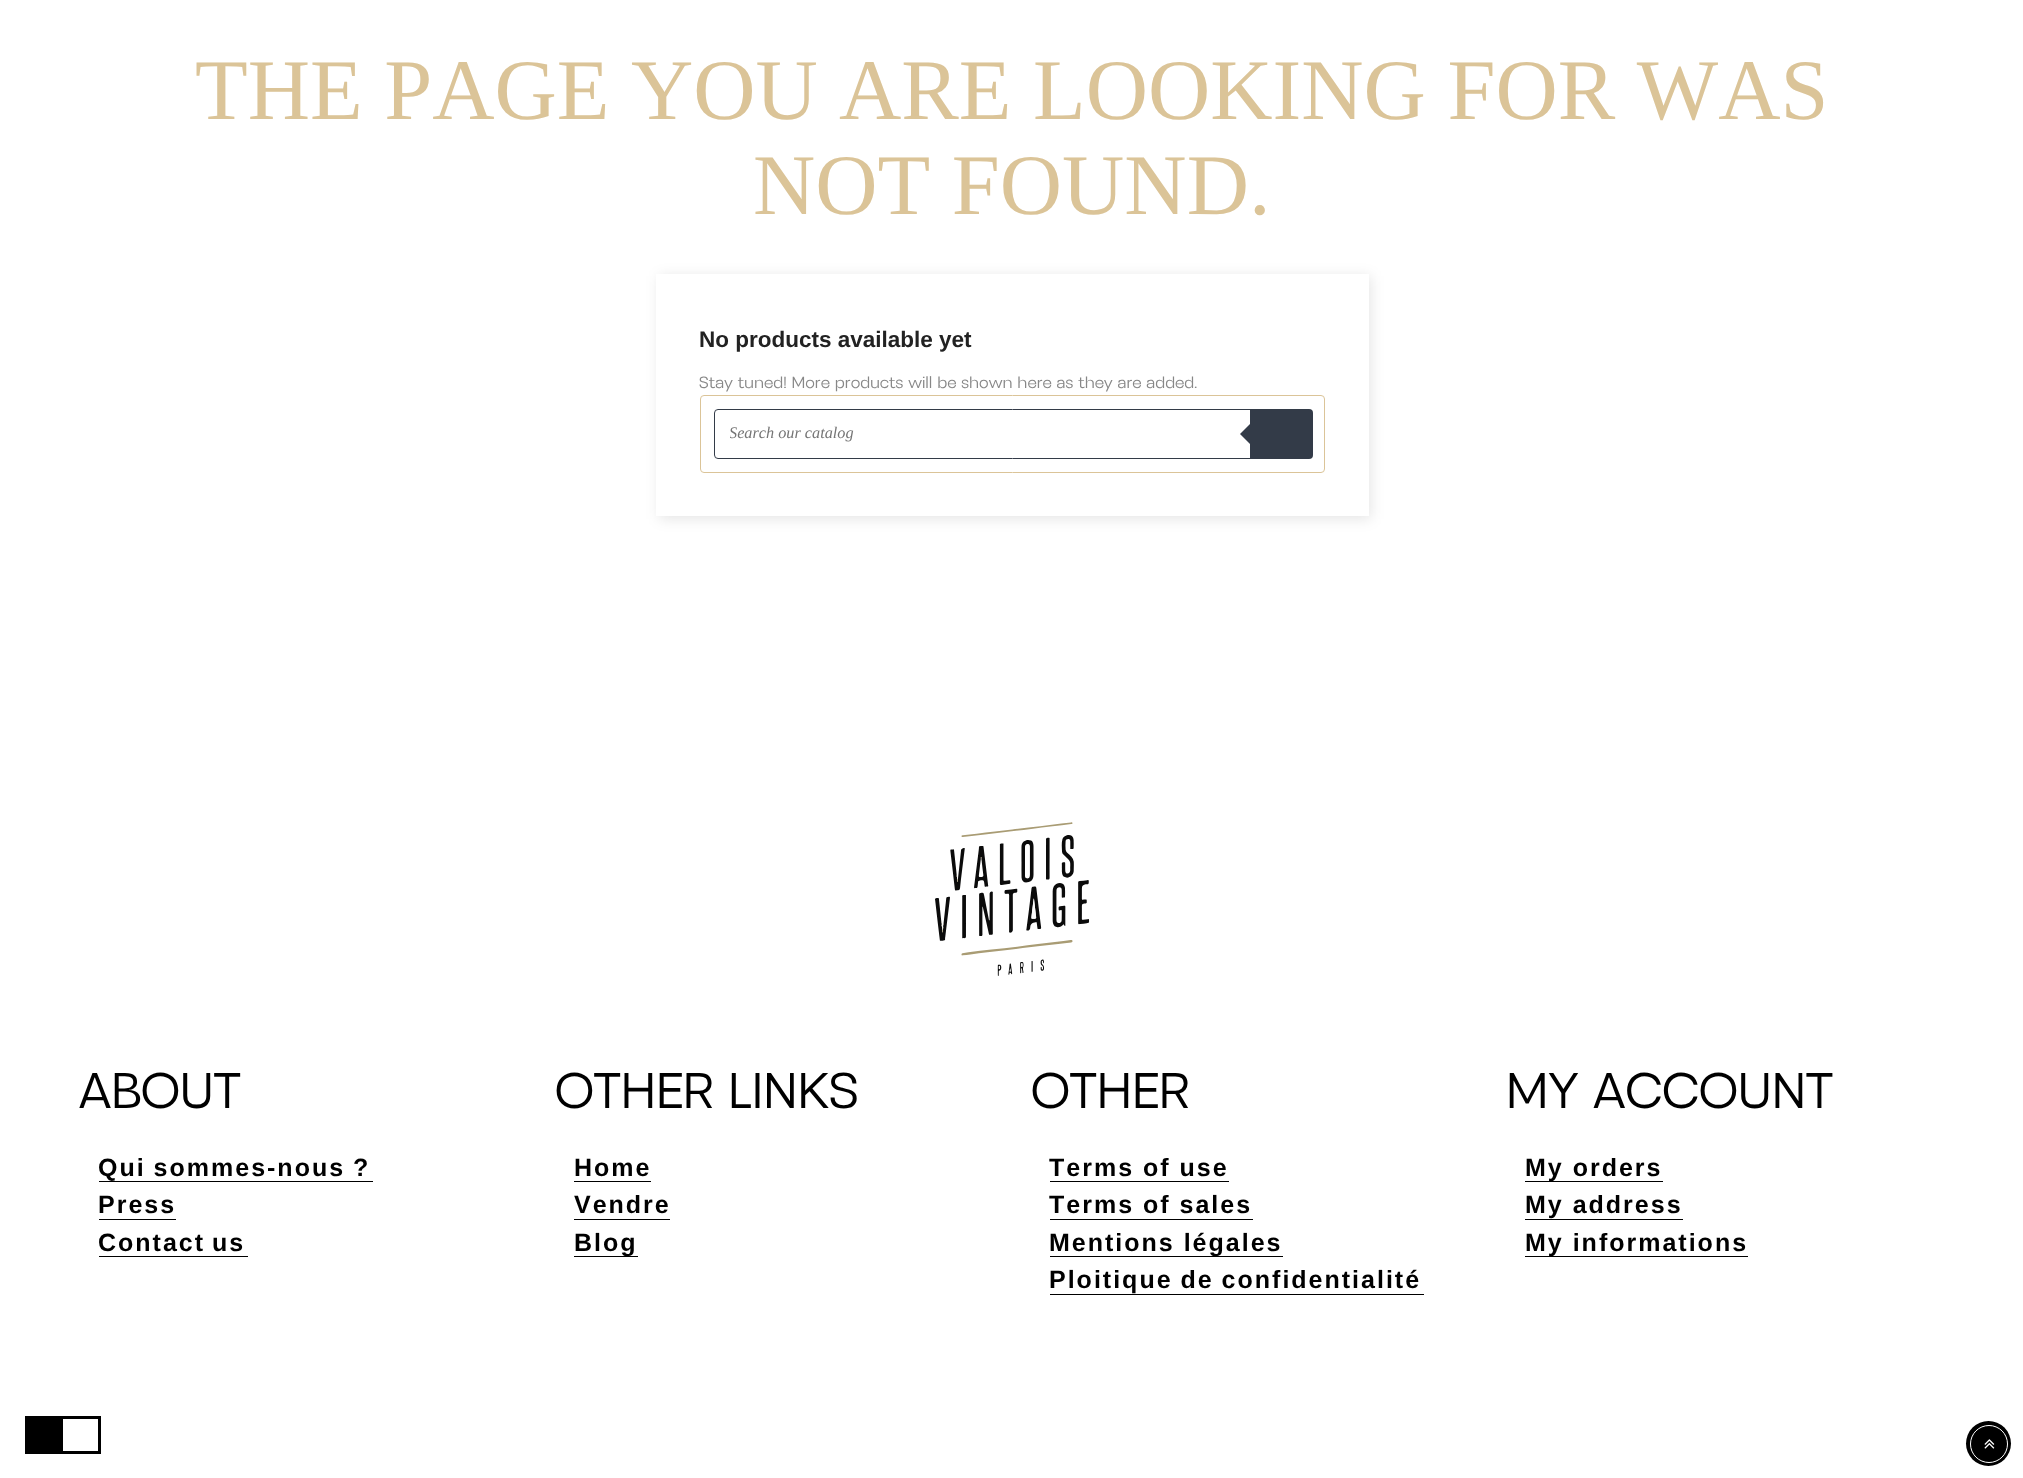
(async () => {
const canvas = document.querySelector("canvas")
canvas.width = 2023
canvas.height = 1478
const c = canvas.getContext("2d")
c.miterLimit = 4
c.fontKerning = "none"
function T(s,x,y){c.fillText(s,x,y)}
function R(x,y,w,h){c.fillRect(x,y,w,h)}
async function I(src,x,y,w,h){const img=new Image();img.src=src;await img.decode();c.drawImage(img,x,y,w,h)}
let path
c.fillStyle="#fff"
R(0,0,2023,1478)
c.font="86.25px Liberation Serif"
c.fillStyle="#dbc498"
T("THE PAGE YOU",195,119)
T("ARE LOOKING FOR WAS",839,119)
T("NOT FOUND.",753,214)
c.fillStyle="#0000001a"
c.filter="blur(7px)"
c.beginPath()
c.rect(659,276,712,243)
c.fill()
c.filter="none"
c.fillStyle="#fff"
R(656,274,713,242)
c.font="bold 22.5px Liberation Sans"
c.fillStyle="#222"
T("No products available yet",699,347)
c.font="300 16.25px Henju"
c.fillStyle="#878787"
T("Stay tuned! More products will be shown here as they are added.",699,388)
c.beginPath()
c.roundRect(700.5,395.5,624,77,3.5)
c.strokeStyle="#dbc498"
c.stroke()
c.beginPath()
c.roundRect(714.5,409.5,596,49,3.5)
c.strokeStyle="#333b48"
c.stroke()
c.save()
c.beginPath()
c.rect(730,424,518,20)
c.clip()
c.font="italic 16.25px Liberation Serif"
c.fillStyle="#757575"
T("Search our catalog",729,438)
c.restore()
c.fillStyle="#333b48"
c.beginPath()
c.roundRect(1250,409,63,50,[0,4,4,0])
c.fill()
path = new Path2D("M1250 424v20l-10-10z")
c.fill(path)
await I("1.png",935,822,155,154)
c.font="300 50px Henju"
c.fillStyle="#000"
T("ABOUT",79,1108)
c.letterSpacing="2px"
c.wordSpacing="-1px"
c.font="bold 25px Liberation Sans"
T("Qui sommes-nous ?",98,1176)
R(99,1181,274,1)
c.wordSpacing="0px"
T("Press",98,1213)
R(99,1219,77,1)
c.wordSpacing="-2px"
T("Contact us",98,1251)
R(99,1256,149,1)
c.letterSpacing="0px"
c.wordSpacing="0px"
c.font="300 50px Henju"
T("OTHER LINKS",555,1108)
c.letterSpacing="2px"
c.font="bold 25px Liberation Sans"
T("Home",574,1176)
R(574,1181,77,1)
T("Vendre",574,1213)
R(574,1219,96,1)
R(574,1256,64,1)
T("Blog",574,1251)
c.letterSpacing="0px"
c.font="300 50px Henju"
T("OTHER",1031,1108)
c.letterSpacing="2px"
c.font="bold 25px Liberation Sans"
T("Terms of use",1049,1176)
R(1050,1181,179,1)
T("Terms of sales",1049,1213)
R(1050,1219,203,1)
R(1050,1256,233,1)
T("Mentions légales",1049,1251)
c.wordSpacing="-1px"
T("Ploitique de confidentialité",1049,1288)
R(1050,1294,374,1)
c.letterSpacing="0px"
c.wordSpacing="0px"
c.font="300 50px Henju"
T("MY ACCOUNT",1506,1108)
R(1525,1181,138,1)
c.letterSpacing="2px"
c.font="bold 25px Liberation Sans"
T("My orders",1525,1176)
T("My address",1525,1213)
R(1525,1219,158,1)
R(1525,1256,223,1)
T("My informations",1525,1251)
c.beginPath()
c.arc(1988.5,1443.5,22.5,0,7)
c.fill()
c.beginPath()
c.arc(1989,1444,18.5,0,7)
c.strokeStyle="#fff"
c.stroke()
await I("2.png",1984,1439,11,10)
R(25,1416,76,38)
c.fillStyle="#fff"
R(63,1419,35,32)
})()
